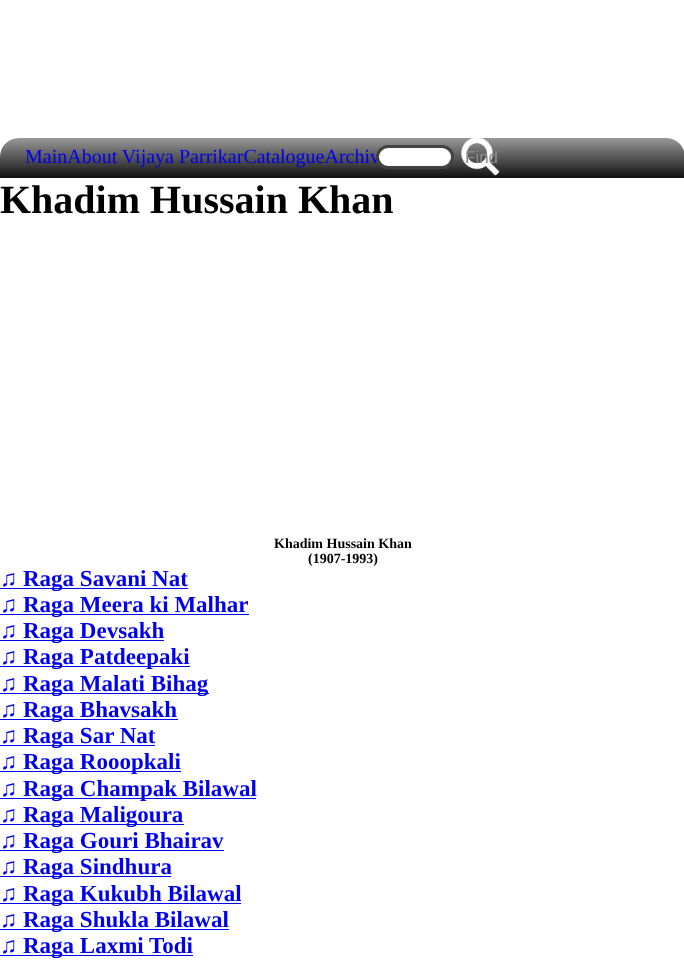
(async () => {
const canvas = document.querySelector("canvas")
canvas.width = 684
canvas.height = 966
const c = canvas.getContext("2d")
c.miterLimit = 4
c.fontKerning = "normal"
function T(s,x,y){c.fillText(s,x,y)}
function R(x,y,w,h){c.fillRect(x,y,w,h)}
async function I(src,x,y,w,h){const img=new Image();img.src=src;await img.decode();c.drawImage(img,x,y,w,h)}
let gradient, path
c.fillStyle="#fff"
R(0,0,684,966)
gradient = c.createLinearGradient(0,178,0,138)
gradient.addColorStop(0,"#121212")
gradient.addColorStop(1,"#989898")
c.fillStyle = gradient
path = new Path2D("M19 138h647c10.5 0 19 8.5 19 19v21h-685v-21c0-10.5 8.5-19 19-19z")
c.fill(path)
c.font="20px Liberation Serif"
c.fillStyle="#00e"
T("MainAbout Vijaya ParrikarCatalogueArchiv",25,163)
c.fillStyle="#fff"
c.beginPath()
c.roundRect(377.5,146.5,75,21,10.5)
c.fill()
c.strokeStyle="#424242"
c.lineWidth=3
c.stroke()
await I("1.png",461,138,39,38)
c.font="17px Liberation Sans"
c.fillStyle="#8c8c8c"
T("Find",465,163)
c.font="bold 40px Liberation Serif"
c.fillStyle="#000"
T("Khadim Hussain Khan",0,213)
c.font="bold 14px Liberation Serif"
T("Khadim Hussain Khan",274,548)
T("(1907-1993)",308,563)
c.fillStyle="#00e"
R(0,588,188,1)
c.font="bold 23px Liberation Serif"
T("♫ Raga Savani Nat",0,586)
R(0,614,249,1)
T("♫ Raga Meera ki Malhar",0,612)
R(0,640,164,1)
T("♫ Raga Devsakh",0,638)
R(0,666,190,1)
T("♫ Raga Patdeepaki",0,664)
R(0,693,209,1)
T("♫ Raga Malati Bihag",0,691)
R(0,719,178,1)
T("♫ Raga Bhavsakh",0,717)
R(0,745,155,1)
T("♫ Raga Sar Nat",0,743)
R(0,771,181,1)
T("♫ Raga Rooopkali",0,769)
R(0,798,256,1)
T("♫ Raga Champak Bilawal",0,796)
R(0,824,184,1)
T("♫ Raga Maligoura",0,822)
R(0,850,224,1)
T("♫ Raga Gouri Bhairav",0,848)
R(0,876,171,1)
T("♫ Raga Sindhura",0,874)
R(0,903,241,1)
T("♫ Raga Kukubh Bilawal",0,901)
R(0,929,229,1)
T("♫ Raga Shukla Bilawal",0,927)
R(0,955,193,1)
T("♫ Raga Laxmi Todi",0,953)
})()
